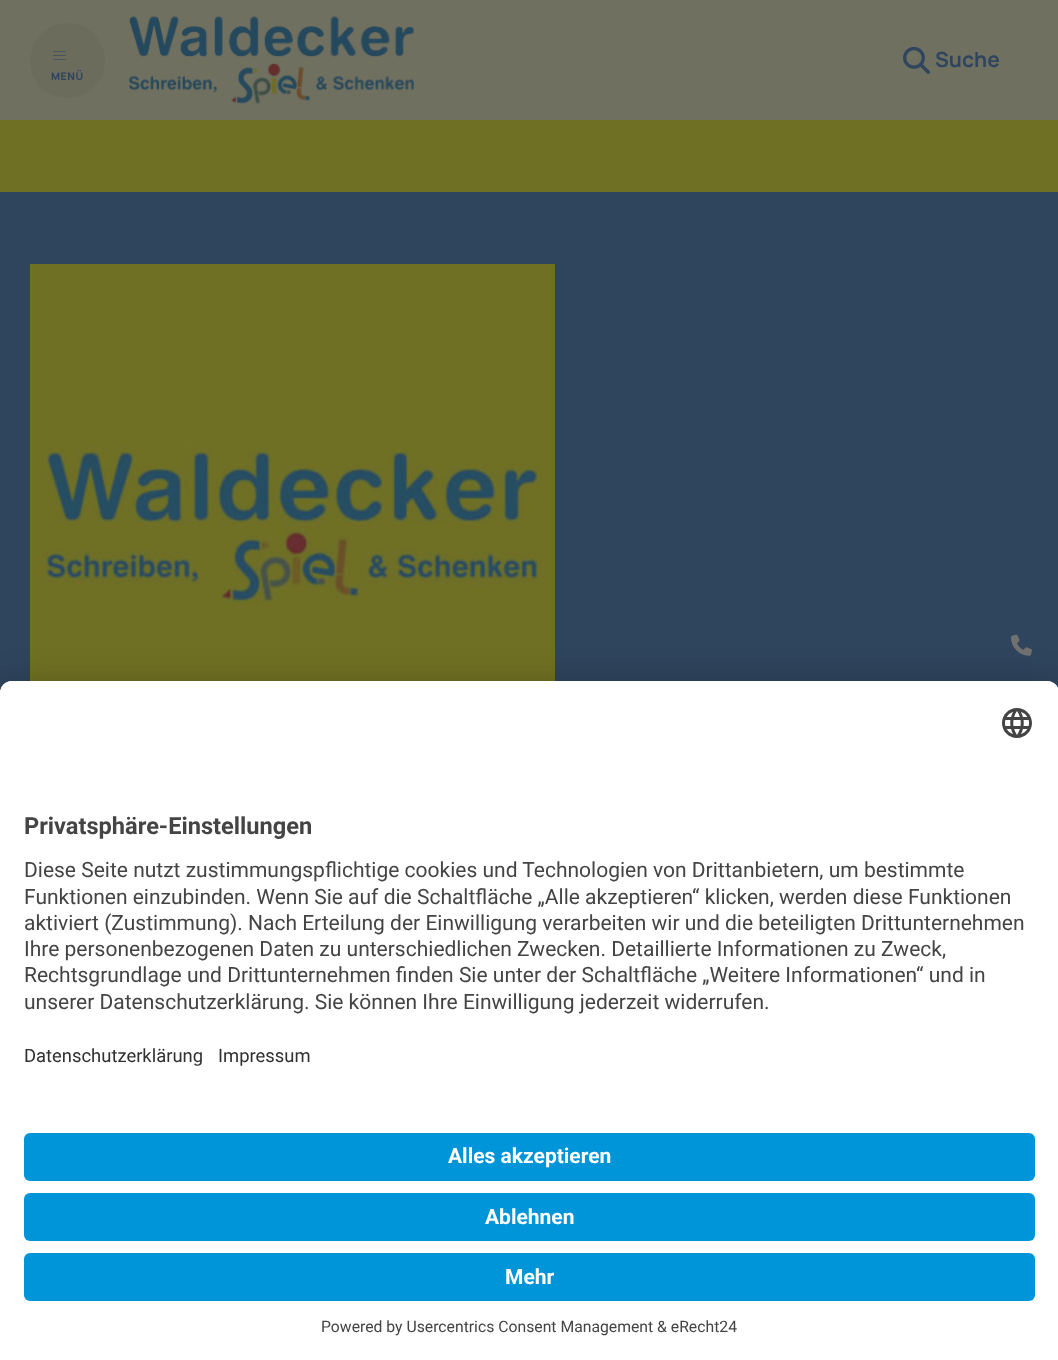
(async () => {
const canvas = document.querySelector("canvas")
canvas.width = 1058
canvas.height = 1360
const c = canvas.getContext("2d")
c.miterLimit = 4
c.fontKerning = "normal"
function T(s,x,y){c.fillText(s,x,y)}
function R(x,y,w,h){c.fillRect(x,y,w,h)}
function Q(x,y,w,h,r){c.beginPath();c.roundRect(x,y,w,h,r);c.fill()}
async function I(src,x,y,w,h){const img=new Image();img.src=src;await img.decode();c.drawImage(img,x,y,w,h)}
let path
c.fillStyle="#707024"
R(0,0,1058,1360)
c.fillStyle="#707061"
R(0,0,1058,120)
await I("1.png",903,46,27,28)
c.font="bold 21px Manrope"
c.fillStyle="#2f455d"
T("Suche",935,67)
c.fillStyle="#6c6c5d"
c.beginPath()
c.arc(67.5,60.5,37.5,0,7)
c.fill()
await I("2.png",53,51,13,9)
c.letterSpacing="0.5px"
c.font="800 10.5px Manrope"
c.fillStyle="#2f455d"
T("MENÜ",51,80)
await I("3.png",129,16,285,88)
R(0,192,1058,501)
await I("4.png",30,264,525,417)
await I("5.png",1011,634,21,22)
c.fillStyle="#0000004d"
c.filter="blur(21px)"
c.beginPath()
c.roundRect(0,711,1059,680,12)
c.fill()
c.filter="none"
c.fillStyle="#00000038"
c.filter="blur(19.5px)"
c.beginPath()
c.roundRect(0,689,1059,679,12)
c.fill()
c.filter="none"
c.fillStyle="#fff"
path = new Path2D("M12 681h1035c6.5 0 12 5.5 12 12v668h-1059v-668c0-6.5 5.5-12 12-12z")
c.fill(path)
path = new Path2D("M12 681h1035c6.5 0 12 5.5 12 12v422h-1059v-422c0-6.5 5.5-12 12-12z")
c.fill(path)
await I("6.png",1002,708,30,30)
c.letterSpacing="0px"
c.font="bold 23.6px Roboto"
c.fillStyle="#444"
T("Privatsphäre-Einstellungen",24,834)
c.font="21px Roboto"
T("Diese Seite nutzt zustimmungspflichtige cookies und Technologien von Drittanbietern, um bestimmte",24,877)
T("Funktionen einzubinden. Wenn Sie auf die Schaltfläche „Alle akzeptieren“ klicken, werden diese Funktionen",24,904)
T("aktiviert (Zustimmung). Nach Erteilung der Einwilligung verarbeiten wir und die beteiligten Drittunternehmen",24,930)
T("Ihre personenbezogenen Daten zu unterschiedlichen Zwecken. Detaillierte Informationen zu Zweck,",24,956)
T("Rechtsgrundlage und Drittunternehmen finden Sie unter der Schaltfläche „Weitere Informationen“ und in",24,982)
T("unserer Datenschutzerklärung. Sie können Ihre Einwilligung jederzeit widerrufen.",24,1009)
c.font="18.4px Roboto"
c.fillStyle="#303030"
T("Datenschutzerklärung",24,1062)
T("Impressum",218,1062)
c.fillStyle="#0094d8"
Q(24,1133,1011,48,6)
c.font="bold 21px Roboto"
c.fillStyle="#fff"
T("Alles akzeptieren",448,1163)
c.fillStyle="#0094d8"
Q(24,1193,1011,48,6)
c.fillStyle="#fff"
T("Ablehnen",485,1224)
c.fillStyle="#0094d8"
Q(24,1253,1011,48,6)
c.fillStyle="#fff"
T("Mehr",505,1284)
c.font="15.75px Roboto"
c.fillStyle="#444"
T("Powered by Usercentrics Consent Management & eRecht24",321,1332)
})()
